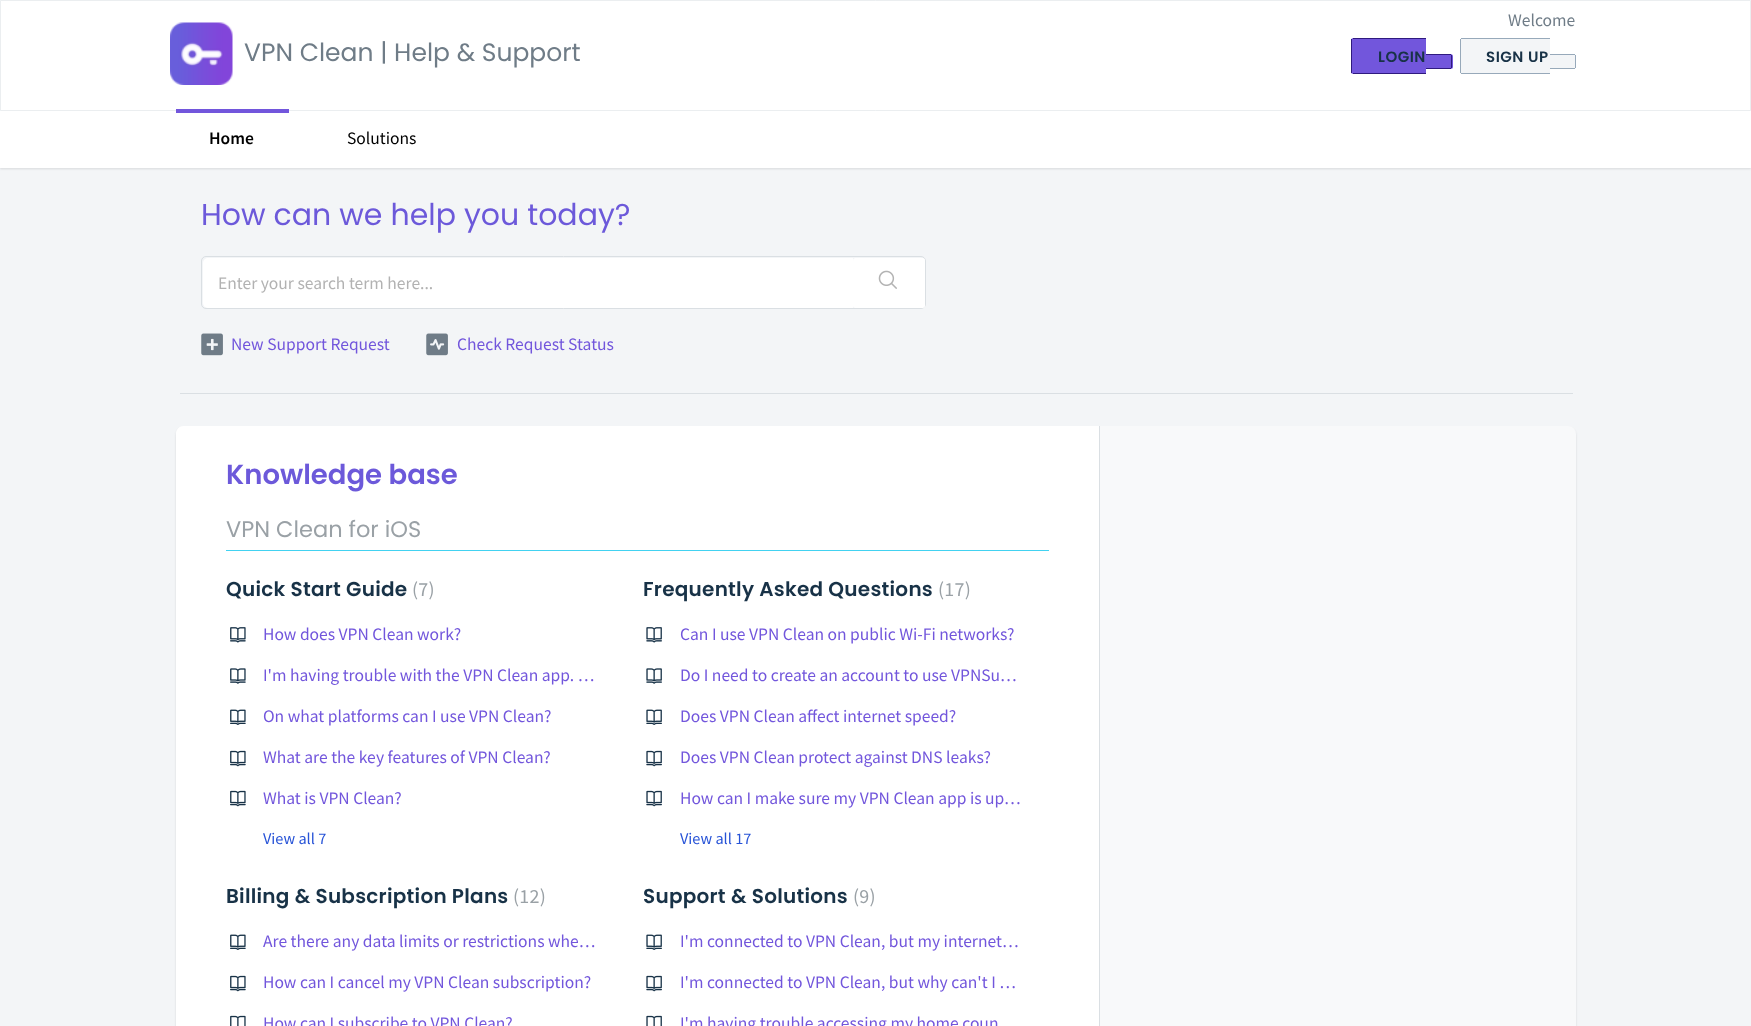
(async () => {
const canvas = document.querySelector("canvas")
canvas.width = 1751
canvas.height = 1026
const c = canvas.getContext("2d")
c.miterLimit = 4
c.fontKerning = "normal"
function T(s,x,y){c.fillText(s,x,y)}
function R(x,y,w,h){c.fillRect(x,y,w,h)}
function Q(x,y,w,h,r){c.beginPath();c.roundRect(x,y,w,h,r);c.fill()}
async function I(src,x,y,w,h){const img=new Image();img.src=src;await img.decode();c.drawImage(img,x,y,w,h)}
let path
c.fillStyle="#f3f5f7"
R(0,0,1751,1026)
c.fillStyle="#fff"
c.beginPath()
c.rect(.5,.5,1750,110)
c.fill()
c.strokeStyle="#ebeef0"
c.stroke()
await I("1.png",170,22,63,63)
c.font="25px Poppins"
c.fillStyle="#6f7c87"
T("VPN Clean | Help & Support",244,61)
c.font="17.5px Source Sans Pro"
T("Welcome",1508,26)
c.fillStyle="#7256dc"
c.beginPath()
c.roundRect(1351,38,75,36,[2.5,0,0,2.5])
c.fill()
c.letterSpacing="0.5px"
c.font="600 15px Poppins"
c.fillStyle="#183247"
T("LOGIN",1378,62)
c.fillStyle="#2f1a7f"
R(1353,38,73,1)
R(1353,73,73,1)
R(1351,39,1,34)
c.fillStyle="#7256dc"
c.beginPath()
c.roundRect(1426,54,27,15,[0,2.5,2.5,0])
c.fill()
c.fillStyle="#2f1a7f"
R(1426,54,25,1)
R(1451,55,1,13)
R(1426,68,25,1)
c.fillStyle="#f3f5f7"
c.beginPath()
c.roundRect(1460,38,90,36,[2.5,0,0,2.5])
c.fill()
c.fillStyle="#183247"
T("SIGN UP",1486,62)
c.fillStyle="#97a9ba"
R(1461,38,89,1)
R(1461,73,89,1)
R(1460,39,1,34)
c.fillStyle="#f3f5f7"
c.beginPath()
c.roundRect(1550,54,26,15,[0,2.5,2.5,0])
c.fill()
c.fillStyle="#97a9ba"
R(1550,54,25,1)
R(1575,55,1,13)
R(1550,68,25,1)
c.fillStyle="#3f3f4426"
c.filter="blur(1px)"
c.beginPath()
c.rect(0,113,1751,56)
c.fill()
c.filter="none"
c.fillStyle="#fff"
R(0,111,1751,57)
c.fillStyle="#7256dc"
R(176,109,113,4)
c.letterSpacing="0px"
c.font="600 17.5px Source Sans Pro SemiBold"
c.fillStyle="#000"
T("Home",209,144)
c.font="17.5px Source Sans Pro"
T("Solutions",347,144)
c.fillStyle="#dadfe3"
R(180,393,1393,1)
c.font="30px Poppins"
c.fillStyle="#6c59da"
T("How can we help you today?",201,225)
c.beginPath()
c.roundRect(201.5,256.5,724,52,4.5)
c.strokeStyle="#dadfe3"
c.stroke()
c.fillStyle="#fff"
c.beginPath()
c.roundRect(203,258,650,50,[5,0,0,5])
c.fill()
c.font="17.5px Source Sans Pro"
c.fillStyle="#b2b2b2"
T("Enter your search term here...",218,289)
c.fillStyle="#fff"
Q(853,258,72,50,2.5)
await I("2.png",878,270,19,19)
await I("3.png",201,333,22,23)
c.fillStyle="#7256dc"
T("New Support Request",231,350)
await I("4.png",426,333,22,23)
T("Check Request Status",457,350)
c.fillStyle="#3f3f4426"
c.filter="blur(1px)"
c.beginPath()
c.roundRect(176,428,1400,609,8)
c.fill()
c.filter="none"
c.fillStyle="#f8f9fa"
Q(176,426,1400,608,8)
c.fillStyle="#fff"
path = new Path2D("M184 426h916v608h-916c-4.5 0-8-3.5-8-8v-592c0-4.5 3.5-8 8-8z")
c.fill(path)
c.fillStyle="#dadfe3"
R(1099,426,1,600)
c.font="600 27.5px Poppins"
c.fillStyle="#6c59da"
T("Knowledge base",226,484)
c.fillStyle="#42d2f1"
R(226,550,823,1)
c.font="22.5px Poppins"
c.fillStyle="#9aa1a6"
T("VPN Clean for iOS",226,537)
c.letterSpacing="0.25px"
c.font="600 20px Poppins"
c.fillStyle="#183247"
T("Quick Start Guide",226,596)
c.font="20px Source Sans Pro"
c.fillStyle="#9aa1a6"
T("(7)",412,596)
await I("5.png",230,627,16,16)
c.letterSpacing="0px"
c.font="17.5px Source Sans Pro"
c.fillStyle="#7256dc"
T("How does VPN Clean work?",263,640)
await I("6.png",230,668,16,16)
T("I'm having trouble with the VPN Clean app. …",263,681)
await I("7.png",230,709,16,16)
T("On what platforms can I use VPN Clean?",263,722)
await I("8.png",230,750,16,17)
T("What are the key features of VPN Clean?",263,763)
await I("8.png",230,790,16,17)
T("What is VPN Clean?",263,804)
c.font="16.25px Source Sans Pro"
c.fillStyle="#2753d7"
T("View all 7",263,844)
c.letterSpacing="0.25px"
c.font="600 20px Poppins"
c.fillStyle="#183247"
T("Frequently Asked Questions",643,596)
c.font="20px Source Sans Pro"
c.fillStyle="#9aa1a6"
T("(17)",938,596)
await I("9.png",646,627,16,16)
c.letterSpacing="0px"
c.font="17.5px Source Sans Pro"
c.fillStyle="#7256dc"
T("Can I use VPN Clean on public Wi-Fi networks?",680,640)
await I("10.png",646,668,16,16)
T("Do I need to create an account to use VPNSu…",680,681)
await I("11.png",646,709,16,16)
T("Does VPN Clean affect internet speed?",680,722)
await I("12.png",646,750,16,17)
T("Does VPN Clean protect against DNS leaks?",680,763)
await I("12.png",646,790,16,17)
T("How can I make sure my VPN Clean app is up…",680,804)
c.font="16.25px Source Sans Pro"
c.fillStyle="#2753d7"
T("View all 17",680,844)
c.letterSpacing="0.25px"
c.font="600 20px Poppins"
c.fillStyle="#183247"
T("Billing & Subscription Plans",226,903)
c.font="20px Source Sans Pro"
c.fillStyle="#9aa1a6"
T("(12)",513,903)
await I("7.png",230,934,16,16)
c.letterSpacing="0px"
c.font="17.5px Source Sans Pro"
c.fillStyle="#7256dc"
T("Are there any data limits or restrictions whe…",263,947)
await I("8.png",230,975,16,17)
T("How can I cancel my VPN Clean subscription?",263,988)
await I("13.png",230,1015,16,11)
T("How can I subscribe to VPN Clean?",263,1029)
c.letterSpacing="0.25px"
c.font="600 20px Poppins"
c.fillStyle="#183247"
T("Support & Solutions",643,903)
c.font="20px Source Sans Pro"
c.fillStyle="#9aa1a6"
T("(9)",853,903)
await I("11.png",646,934,16,16)
c.letterSpacing="0px"
c.font="17.5px Source Sans Pro"
c.fillStyle="#7256dc"
T("I'm connected to VPN Clean, but my internet…",680,947)
await I("12.png",646,975,16,17)
T("I'm connected to VPN Clean, but why can't I …",680,988)
await I("14.png",646,1015,16,11)
T("I'm having trouble accessing my home coun",680,1029)
})()
